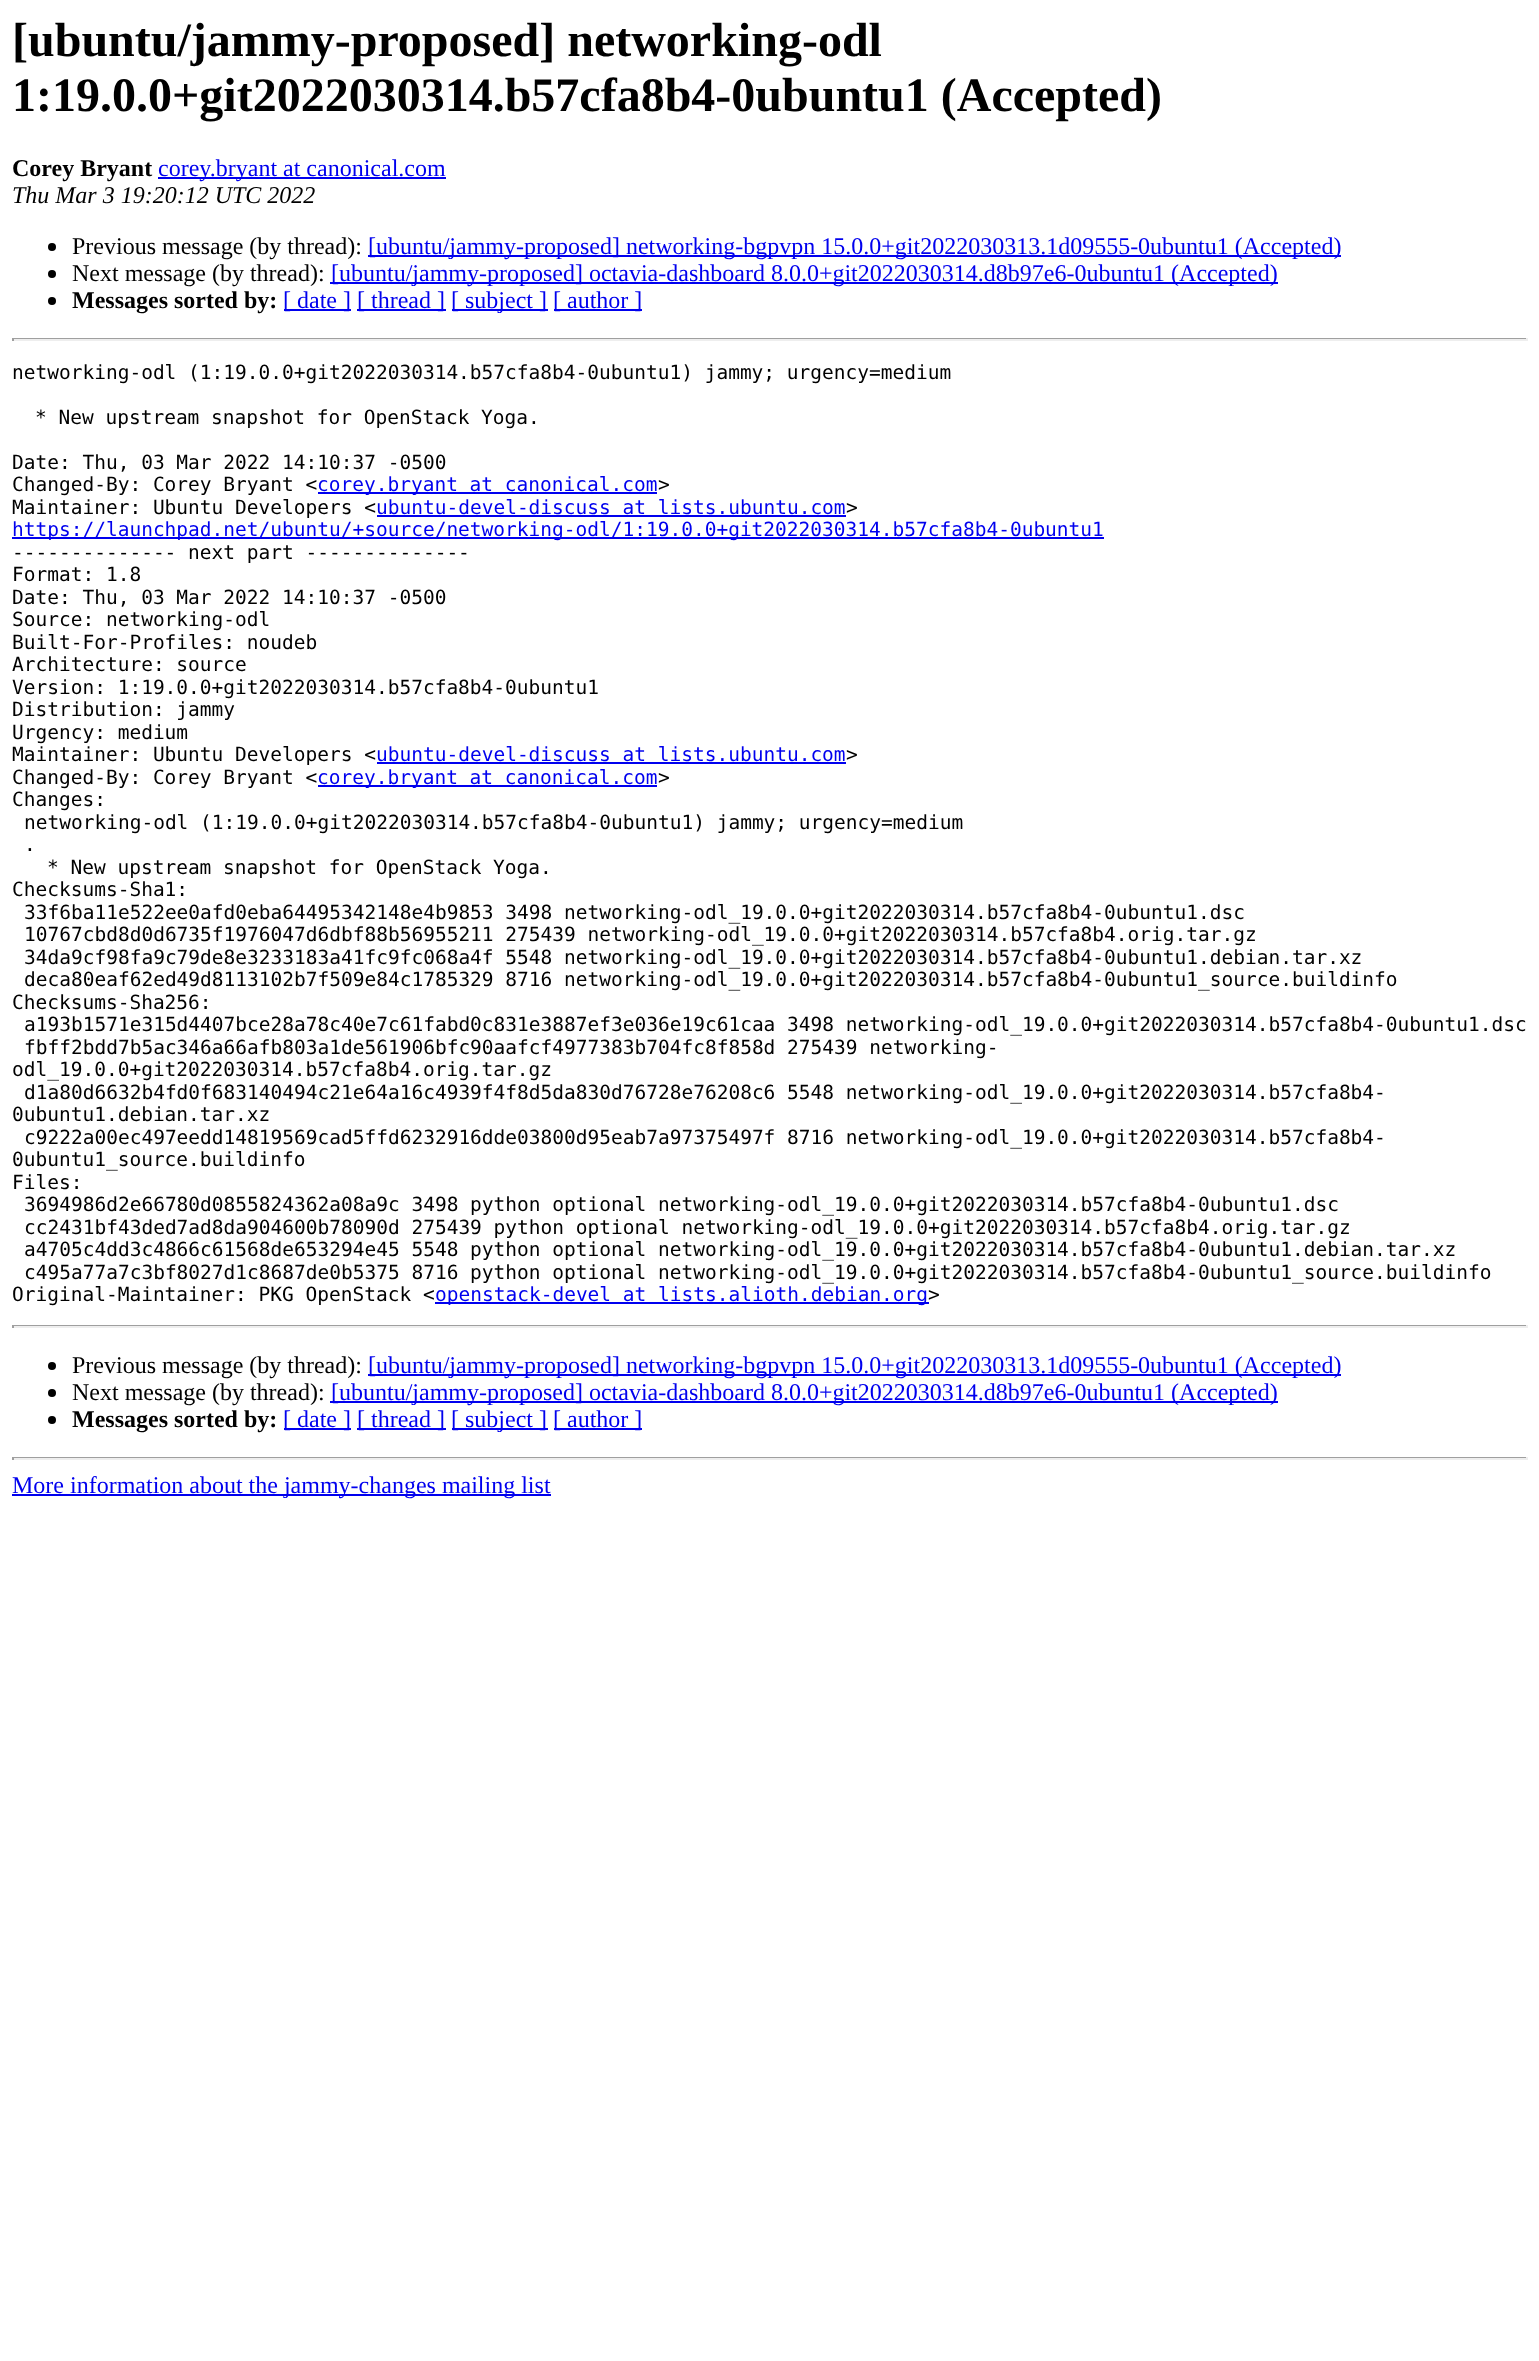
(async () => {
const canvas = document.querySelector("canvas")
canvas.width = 1539
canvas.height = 2361
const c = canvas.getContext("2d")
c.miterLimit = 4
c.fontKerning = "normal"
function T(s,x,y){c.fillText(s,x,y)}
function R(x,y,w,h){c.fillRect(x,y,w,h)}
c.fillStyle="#fff"
R(0,0,1539,2361)
c.font="bold 48px Liberation Serif"
c.fillStyle="#000"
T("[ubuntu/jammy-proposed] networking-odl",12,56)
T("1:19.0.0+git2022030314.b57cfa8b4-0ubuntu1 (Accepted)",12,111)
c.font="bold 24px Liberation Serif"
T("Corey Bryant",12,176)
c.fillStyle="#00e"
R(158,177,288,2)
c.font="24px Liberation Serif"
T("corey.bryant at canonical.com",158,176)
c.font="italic 24px Liberation Serif"
c.fillStyle="#000"
T("Thu Mar 3 19:20:12 UTC 2022",12,203)
c.beginPath()
c.arc(52,247,4,0,7)
c.fill()
c.font="24px Liberation Serif"
T("Previous message (by thread):",72,254)
c.fillStyle="#00e"
R(368,255,973,2)
T("[ubuntu/jammy-proposed] networking-bgpvpn 15.0.0+git2022030313.1d09555-0ubuntu1 (Accepted)",368,254)
c.fillStyle="#000"
c.beginPath()
c.arc(52,274,4,0,7)
c.fill()
T("Next message (by thread):",72,281)
c.fillStyle="#00e"
R(330,282,948,2)
T("[ubuntu/jammy-proposed] octavia-dashboard 8.0.0+git2022030314.d8b97e6-0ubuntu1 (Accepted)",331,281)
c.fillStyle="#000"
c.beginPath()
c.arc(52,301,4,0,7)
c.fill()
c.font="bold 24px Liberation Serif"
T("Messages sorted by:",72,308)
c.fillStyle="#00e"
R(284,309,67,2)
c.font="24px Liberation Serif"
T("[ date ]",283,308)
R(357,309,89,2)
T("[ thread ]",357,308)
R(452,309,96,2)
T("[ subject ]",451,308)
R(554,309,88,2)
T("[ author ]",553,308)
c.fillStyle="#9f9f9f"
R(12,338,1515,1)
c.fillStyle="#eee"
R(1526,338,2,3)
R(12,339,1515,2)
c.fillStyle="#9f9f9f"
R(12,338,2,3)
c.font="19.5px DejaVu Sans Mono"
c.fillStyle="#000"
T("networking-odl (1:19.0.0+git2022030314.b57cfa8b4-0ubuntu1) jammy; urgency=medium",12,379)
T("* New upstream snapshot for OpenStack Yoga.",35,424)
T("Date: Thu, 03 Mar 2022 14:10:37 -0500",12,469)
T("Changed-By: Corey Bryant <",12,491)
c.fillStyle="#00e"
R(318,492,339,2)
T("corey.bryant at canonical.com",317,491)
c.fillStyle="#000"
T(">",658,491)
T("Maintainer: Ubuntu Developers <",12,514)
c.fillStyle="#00e"
T("ubuntu-devel-discuss at lists.ubuntu.com",376,514)
R(377,515,469,2)
c.fillStyle="#000"
T(">",846,514)
c.fillStyle="#00e"
R(12,537,1092,2)
T("https://launchpad.net/ubuntu/+source/networking-odl/1:19.0.0+git2022030314.b57cfa8b4-0ubuntu1",12,536)
c.fillStyle="#000"
T("-------------- next part --------------",12,559)
T("Format: 1.8",12,581)
T("Date: Thu, 03 Mar 2022 14:10:37 -0500",12,604)
T("Source: networking-odl",12,626)
T("Built-For-Profiles: noudeb",12,649)
T("Architecture: source",12,671)
T("Version: 1:19.0.0+git2022030314.b57cfa8b4-0ubuntu1",12,694)
T("Distribution: jammy",12,716)
T("Urgency: medium",12,739)
T("Maintainer: Ubuntu Developers <",12,761)
c.fillStyle="#00e"
T("ubuntu-devel-discuss at lists.ubuntu.com",376,761)
R(377,762,469,2)
c.fillStyle="#000"
T(">",846,761)
T("Changed-By: Corey Bryant <",12,784)
c.fillStyle="#00e"
R(318,785,339,2)
T("corey.bryant at canonical.com",317,784)
c.fillStyle="#000"
T(">",658,784)
T("Changes:",12,806)
T("networking-odl (1:19.0.0+git2022030314.b57cfa8b4-0ubuntu1) jammy; urgency=medium",24,829)
T(".",24,851)
T("* New upstream snapshot for OpenStack Yoga.",47,874)
T("Checksums-Sha1:",12,896)
T("33f6ba11e522ee0afd0eba64495342148e4b9853 3498 networking-odl_19.0.0+git2022030314.b57cfa8b4-0ubuntu1.dsc",24,919)
T("10767cbd8d0d6735f1976047d6dbf88b56955211 275439 networking-odl_19.0.0+git2022030314.b57cfa8b4.orig.tar.gz",24,941)
T("34da9cf98fa9c79de8e3233183a41fc9fc068a4f 5548 networking-odl_19.0.0+git2022030314.b57cfa8b4-0ubuntu1.debian.tar.xz",24,964)
T("deca80eaf62ed49d8113102b7f509e84c1785329 8716 networking-odl_19.0.0+git2022030314.b57cfa8b4-0ubuntu1_source.buildinfo",24,986)
T("Checksums-Sha256:",12,1009)
T("a193b1571e315d4407bce28a78c40e7c61fabd0c831e3887ef3e036e19c61caa 3498 networking-odl_19.0.0+git2022030314.b57cfa8b4-0ubuntu1.dsc",24,1031)
T("fbff2bdd7b5ac346a66afb803a1de561906bfc90aafcf4977383b704fc8f858d 275439 networking-",24,1054)
T("odl_19.0.0+git2022030314.b57cfa8b4.orig.tar.gz",12,1076)
T("d1a80d6632b4fd0f683140494c21e64a16c4939f4f8d5da830d76728e76208c6 5548 networking-odl_19.0.0+git2022030314.b57cfa8b4-",24,1099)
T("0ubuntu1.debian.tar.xz",12,1121)
T("c9222a00ec497eedd14819569cad5ffd6232916dde03800d95eab7a97375497f 8716 networking-odl_19.0.0+git2022030314.b57cfa8b4-",24,1144)
T("0ubuntu1_source.buildinfo",12,1166)
T("Files:",12,1189)
T("3694986d2e66780d0855824362a08a9c 3498 python optional networking-odl_19.0.0+git2022030314.b57cfa8b4-0ubuntu1.dsc",24,1211)
T("cc2431bf43ded7ad8da904600b78090d 275439 python optional networking-odl_19.0.0+git2022030314.b57cfa8b4.orig.tar.gz",24,1234)
T("a4705c4dd3c4866c61568de653294e45 5548 python optional networking-odl_19.0.0+git2022030314.b57cfa8b4-0ubuntu1.debian.tar.xz",24,1256)
T("c495a77a7c3bf8027d1c8687de0b5375 8716 python optional networking-odl_19.0.0+git2022030314.b57cfa8b4-0ubuntu1_source.buildinfo",24,1279)
T("Original-Maintainer: PKG OpenStack <",12,1301)
c.fillStyle="#00e"
R(435,1302,494,2)
T("openstack-devel at lists.alioth.debian.org",435,1301)
c.fillStyle="#000"
T(">",928,1301)
c.fillStyle="#9f9f9f"
R(12,1325,1515,1)
c.fillStyle="#eee"
R(1526,1325,2,3)
R(12,1326,1515,2)
c.fillStyle="#9f9f9f"
R(12,1325,2,3)
c.fillStyle="#000"
c.beginPath()
c.arc(52,1366,4,0,7)
c.fill()
c.font="24px Liberation Serif"
T("Previous message (by thread):",72,1373)
c.fillStyle="#00e"
R(368,1374,973,2)
T("[ubuntu/jammy-proposed] networking-bgpvpn 15.0.0+git2022030313.1d09555-0ubuntu1 (Accepted)",368,1373)
c.fillStyle="#000"
c.beginPath()
c.arc(52,1393,4,0,7)
c.fill()
T("Next message (by thread):",72,1400)
c.fillStyle="#00e"
R(330,1401,948,2)
T("[ubuntu/jammy-proposed] octavia-dashboard 8.0.0+git2022030314.d8b97e6-0ubuntu1 (Accepted)",331,1400)
c.fillStyle="#000"
c.beginPath()
c.arc(52,1420,4,0,7)
c.fill()
c.font="bold 24px Liberation Serif"
T("Messages sorted by:",72,1427)
c.fillStyle="#00e"
R(284,1428,67,2)
c.font="24px Liberation Serif"
T("[ date ]",283,1427)
R(357,1428,89,2)
T("[ thread ]",357,1427)
R(452,1428,96,2)
T("[ subject ]",451,1427)
R(554,1428,88,2)
T("[ author ]",553,1427)
c.fillStyle="#9f9f9f"
R(12,1457,1515,1)
c.fillStyle="#eee"
R(1526,1457,2,3)
R(12,1458,1515,2)
c.fillStyle="#9f9f9f"
R(12,1457,2,3)
c.fillStyle="#00e"
R(12,1494,539,2)
T("More information about the jammy-changes mailing list",12,1493)
})()
